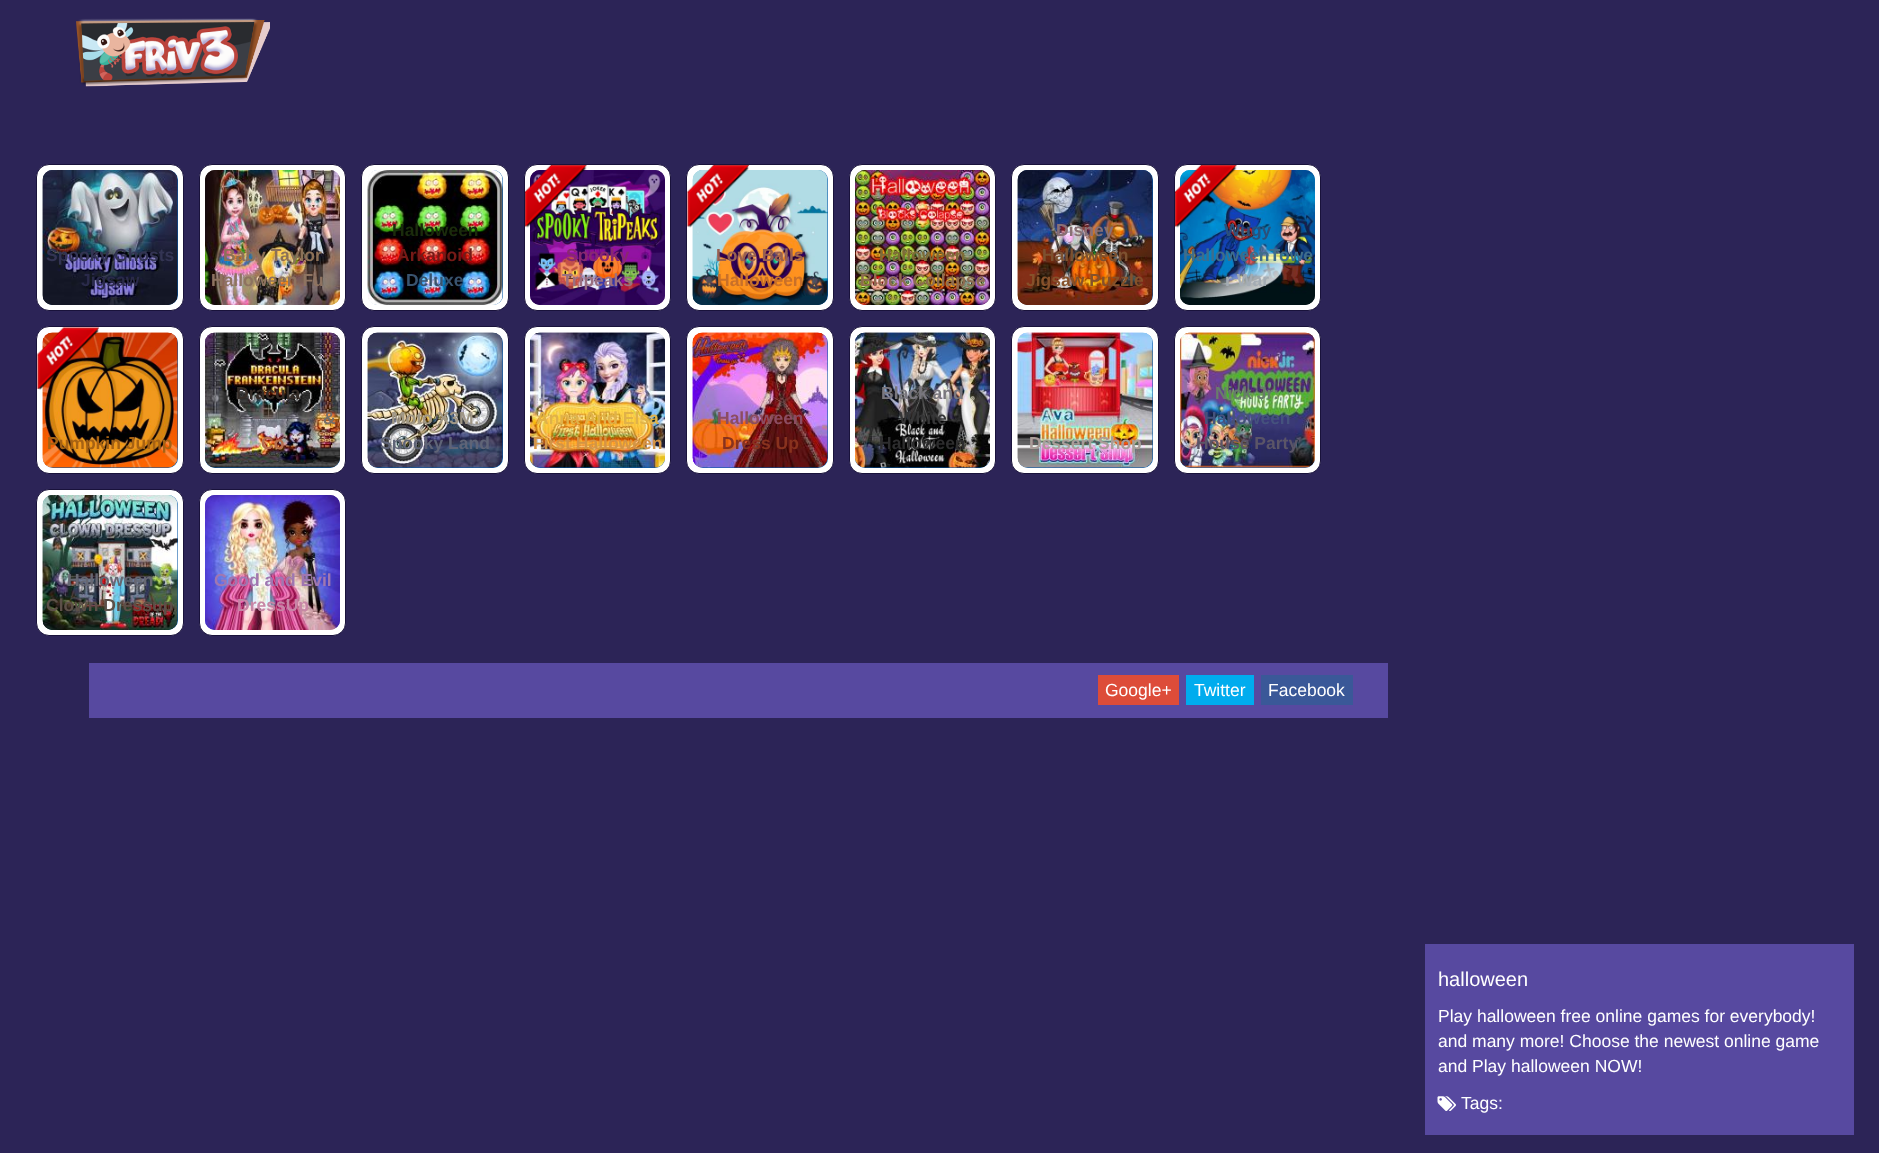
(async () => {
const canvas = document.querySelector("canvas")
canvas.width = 1879
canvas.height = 1153
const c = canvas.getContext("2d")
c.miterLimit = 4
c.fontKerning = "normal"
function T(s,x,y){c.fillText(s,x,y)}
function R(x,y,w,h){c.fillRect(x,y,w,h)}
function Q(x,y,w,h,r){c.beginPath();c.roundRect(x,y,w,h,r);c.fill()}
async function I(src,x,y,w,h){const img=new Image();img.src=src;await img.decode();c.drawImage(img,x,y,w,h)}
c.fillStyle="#2c2457"
R(0,0,1879,1153)
await I("1.png",76,18,194,69)
c.fillStyle="#fff"
c.beginPath()
c.roundRect(36.5,164.5,147,146,12.5)
c.fill()
c.strokeStyle="#19123b"
c.stroke()
c.fillStyle="#0457a7"
Q(43,170,135,135,10)
await I("2.png",42,170,136,135)
await I("3.png",42,170,136,135)
c.font="bold 17.5px Liberation Sans"
c.fillStyle="#333453"
T("Spooky Ghosts",46,261)
c.fillStyle="#2a2a4a"
T("Jigsaw",81,286)
c.fillStyle="#fff"
c.beginPath()
c.roundRect(199.5,164.5,146,146,12.5)
c.fill()
c.stroke()
await I("4.png",205,170,135,135)
await I("5.png",205,170,135,135)
c.fillStyle="#8c7157"
T("Baby Taylor",223,261)
c.fillStyle="#8e7360"
T("Halloween Fu",211,286)
c.fillStyle="#fff"
c.beginPath()
c.roundRect(361.5,164.5,147,146,12.5)
c.fill()
c.stroke()
c.fillStyle="#0457a7"
Q(368,170,135,135,10)
await I("6.png",367,170,136,135)
await I("7.png",367,170,136,135)
c.fillStyle="#1b2c0c"
T("Halloween",392,236)
c.fillStyle="#761a17"
T("Arkanoid",397,261)
c.fillStyle="#39546f"
T("Deluxe",406,286)
c.fillStyle="#fff"
c.beginPath()
c.roundRect(524.5,164.5,146,146,12.5)
c.fill()
c.stroke()
await I("9.png",530,170,135,135)
await I("10.png",530,170,135,135)
await I("8.png",525,165,62,63)
c.fillStyle="#892870"
T("Spooky",566,261)
c.fillStyle="#9b7081"
T("Tripeaks",562,286)
c.fillStyle="#fff"
c.beginPath()
c.roundRect(686.5,164.5,147,146,12.5)
c.fill()
c.stroke()
c.fillStyle="#0457a7"
Q(693,170,135,135,10)
await I("12.png",692,170,136,135)
await I("13.png",692,170,136,135)
await I("11.png",687,165,63,63)
c.fillStyle="#986051"
T("Love Balls",716,261)
c.fillStyle="#c87029"
T("Halloween",717,286)
c.fillStyle="#fff"
c.beginPath()
c.roundRect(849.5,164.5,146,146,12.5)
c.fill()
c.stroke()
await I("14.png",855,170,135,135)
await I("15.png",855,170,135,135)
c.fillStyle="#7e6b37"
T("Halloween",879,261)
c.fillStyle="#8e6c50"
T("Block Collapse",860,286)
c.fillStyle="#fff"
c.beginPath()
c.roundRect(1011.5,164.5,147,146,12.5)
c.fill()
c.stroke()
c.fillStyle="#0457a7"
Q(1018,170,135,135,10)
await I("16.png",1017,170,136,135)
await I("17.png",1017,170,136,135)
c.fillStyle="#897075"
T("Disney",1056,236)
c.fillStyle="#7d5130"
T("Halloween",1042,261)
c.fillStyle="#86512a"
T("Jigsaw Puzzle",1026,286)
c.fillStyle="#fff"
c.beginPath()
c.roundRect(1174.5,164.5,146,146,12.5)
c.fill()
c.stroke()
await I("19.png",1180,170,135,135)
await I("20.png",1180,170,135,135)
c.fillStyle="#2b507b"
T("Wugy",1224,236)
await I("18.png",1175,165,62,63)
c.fillStyle="#3f6d8b"
T("HalloweenTowe",1183,261)
c.fillStyle="#a4acb4"
T("r War",1225,286)
c.fillStyle="#fff"
c.beginPath()
c.roundRect(36.5,326.5,147,147,12.5)
c.fill()
c.stroke()
c.fillStyle="#0457a7"
Q(43,333,135,135,10)
await I("22.png",42,332,136,136)
await I("23.png",42,332,136,136)
await I("21.png",37,327,63,63)
c.fillStyle="#a76213"
T("Pumpkin Jump",47,449)
c.fillStyle="#fff"
c.beginPath()
c.roundRect(199.5,326.5,146,147,12.5)
c.fill()
c.stroke()
c.fillStyle="#0457a7"
Q(205,333,135,135,10)
await I("24.png",205,332,135,136)
await I("25.png",205,332,135,136)
c.fillStyle="#352c27"
T("Dracula",236,399)
c.fillStyle="#756e69"
T("&",323,424)
c.fillStyle="#b5704f"
T("Co",261,449)
c.fillStyle="#fff"
c.beginPath()
c.roundRect(361.5,326.5,147,147,12.5)
c.fill()
c.stroke()
c.fillStyle="#0457a7"
Q(368,333,135,135,10)
await I("26.png",367,332,136,136)
await I("27.png",367,332,136,136)
c.fillStyle="#a09786"
T("Moto X3M:",391,424)
c.fillStyle="#5f6477"
T("Spooky Land",380,449)
c.fillStyle="#fff"
c.beginPath()
c.roundRect(524.5,326.5,146,147,12.5)
c.fill()
c.stroke()
c.fillStyle="#0457a7"
Q(530,333,135,135,10)
await I("28.png",530,332,135,136)
await I("29.png",530,332,135,136)
c.fillStyle="#e0b249"
T("Anna And Elsa",536,424)
c.fillStyle="#d49546"
T("First Halloween",533,449)
c.fillStyle="#fff"
c.beginPath()
c.roundRect(686.5,326.5,147,147,12.5)
c.fill()
c.stroke()
c.fillStyle="#0457a7"
Q(693,333,135,135,10)
await I("30.png",692,332,136,136)
await I("31.png",692,332,136,136)
c.fillStyle="#8c4c61"
T("Halloween",717,424)
c.fillStyle="#88321e"
T("Dress Up",722,449)
c.fillStyle="#fff"
c.beginPath()
c.roundRect(849.5,326.5,146,147,12.5)
c.fill()
c.stroke()
c.fillStyle="#0457a7"
Q(855,333,135,135,10)
await I("32.png",855,332,135,136)
await I("33.png",855,332,135,136)
c.fillStyle="#79777e"
T("Black and",881,399)
c.fillStyle="#363637"
T("White",899,424)
c.fillStyle="#2d2d2e"
T("Halloween",879,449)
c.fillStyle="#fff"
c.beginPath()
c.roundRect(1011.5,326.5,147,147,12.5)
c.fill()
c.stroke()
c.fillStyle="#0457a7"
Q(1018,333,135,135,10)
await I("34.png",1017,332,136,136)
await I("35.png",1017,332,136,136)
c.fillStyle="#aa9d99"
T("Dessert Shop",1029,449)
c.fillStyle="#fff"
c.beginPath()
c.roundRect(1174.5,326.5,146,147,12.5)
c.fill()
c.stroke()
c.fillStyle="#0457a7"
Q(1180,333,135,135,10)
await I("36.png",1180,332,135,136)
await I("37.png",1180,332,135,136)
c.fillStyle="#687d6a"
T("Nick Jr:",1215,399)
c.fillStyle="#45527d"
T("Halloween",1204,424)
c.fillStyle="#5b5567"
T("House Party",1196,449)
c.fillStyle="#fff"
c.beginPath()
c.roundRect(36.5,489.5,147,146,12.5)
c.fill()
c.stroke()
c.fillStyle="#0457a7"
Q(43,495,135,135,10)
await I("38.png",42,495,136,135)
await I("39.png",42,495,136,135)
c.fillStyle="#666772"
T("Halloween",67,586)
c.fillStyle="#5c5048"
T("Clown Dressup",46,611)
c.fillStyle="#fff"
c.beginPath()
c.roundRect(199.5,489.5,146,146,12.5)
c.fill()
c.stroke()
await I("40.png",205,495,135,135)
await I("41.png",205,495,135,135)
c.fillStyle="#a077b1"
T("Good and Evil",214,586)
c.fillStyle="#c786a6"
T("DressUp",237,611)
c.fillStyle="#5749a0"
R(89,663,1299,55)
c.fillStyle="#dd4c39"
R(1098,675,81,30)
c.font="17.5px Liberation Sans"
c.fillStyle="#fff"
T("Google+",1105,696)
c.fillStyle="#00acee"
R(1186,675,68,30)
c.fillStyle="#fff"
T("Twitter",1194,696)
c.fillStyle="#3a5898"
R(1261,675,92,30)
c.fillStyle="#fff"
T("Facebook",1268,696)
c.fillStyle="#5749a0"
R(1425,944,429,191)
c.font="20px Liberation Sans"
c.fillStyle="#fff"
T("halloween",1438,986)
c.font="17.5px Liberation Sans"
T("Play halloween free online games for everybody!",1438,1022)
T("and many more! Choose the newest online game",1438,1047)
T("and Play halloween NOW!",1438,1072)
await I("42.png",1437,1096,19,15)
T("Tags:",1461,1109)
})()
